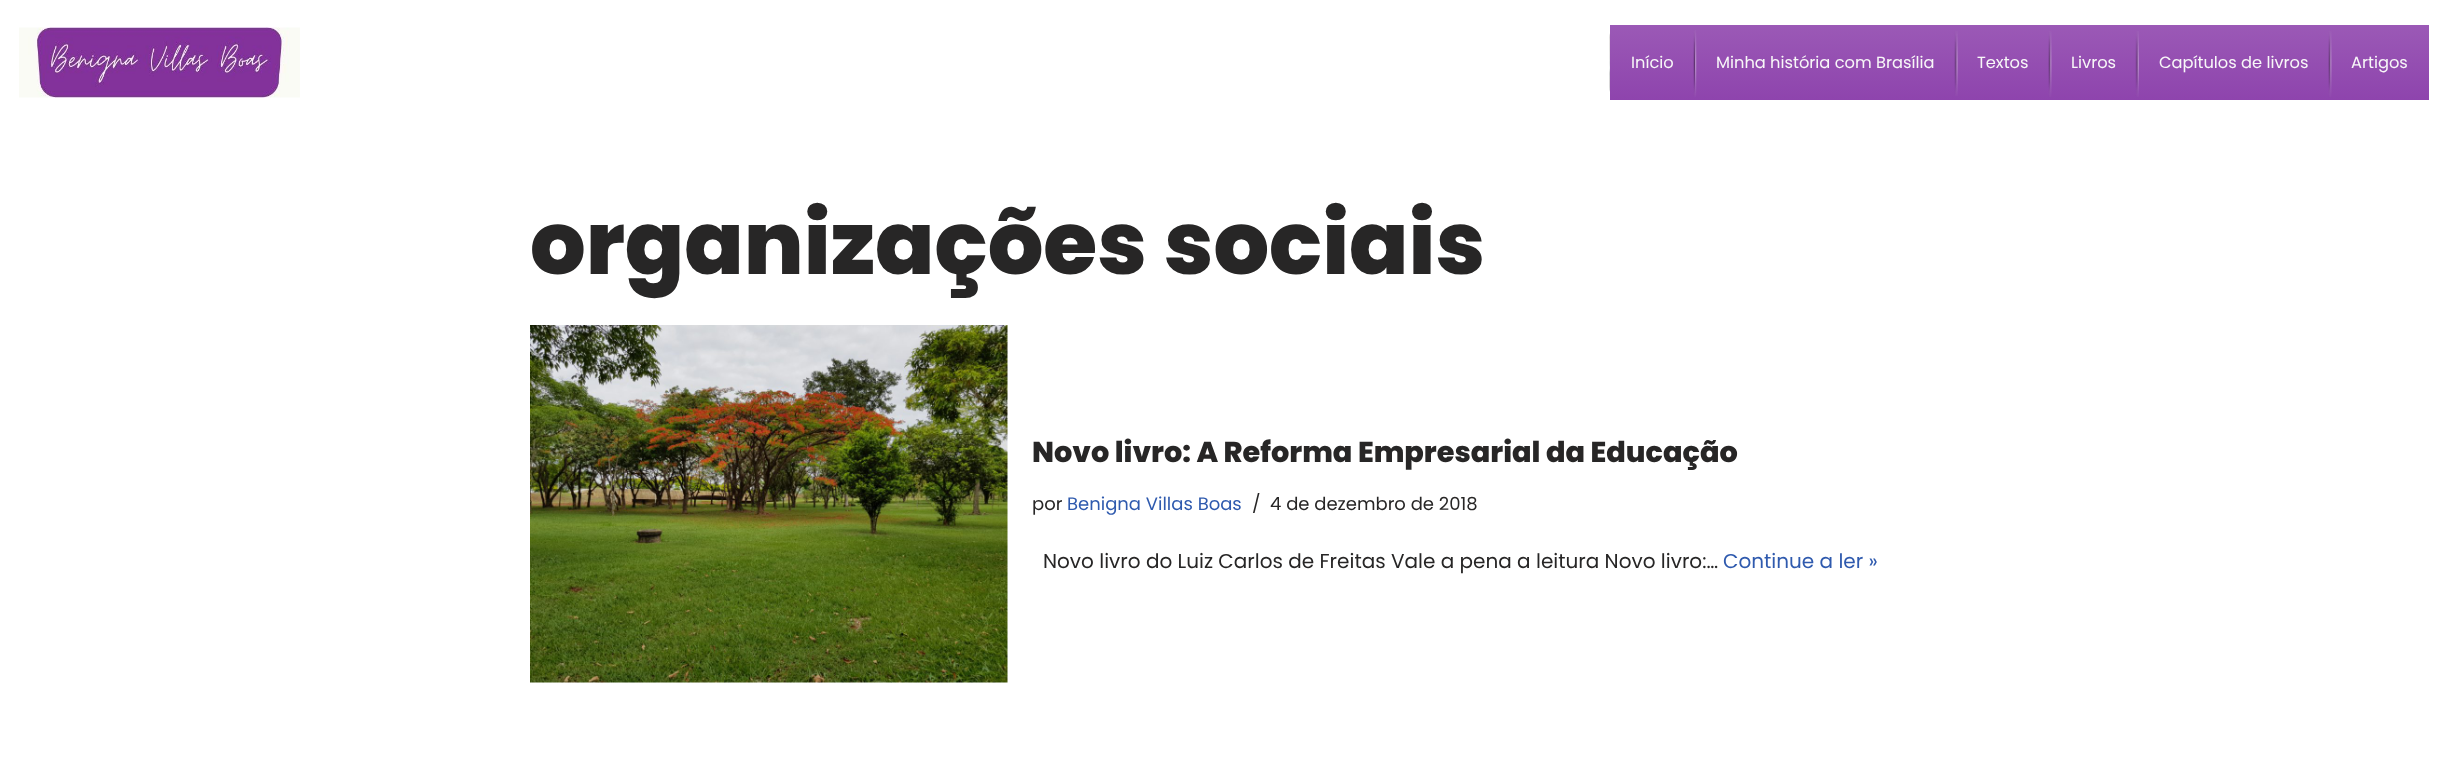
(async () => {
const canvas = document.querySelector("canvas")
canvas.width = 2447
canvas.height = 780
const c = canvas.getContext("2d")
c.miterLimit = 4
c.fontKerning = "normal"
function T(s,x,y){c.fillText(s,x,y)}
function R(x,y,w,h){c.fillRect(x,y,w,h)}
async function I(src,x,y,w,h){const img=new Image();img.src=src;await img.decode();c.drawImage(img,x,y,w,h)}
let gradient
c.fillStyle="#fff"
R(0,0,2447,780)
await I("1.png",19,27,281,71)
await I("2.png",1609,33,1,59)
gradient = c.createLinearGradient(1653,25,1653,100)
gradient.addColorStop(0,"#9b59b6")
gradient.addColorStop(1,"#8e44ad")
c.fillStyle = gradient
R(1610,25,85,75)
c.font="16.25px Poppins"
c.fillStyle="#f8f8f8"
T("Início",1631,68)
gradient = c.createLinearGradient(1826,25,1826,100)
gradient.addColorStop(0,"#9b59b6")
gradient.addColorStop(1,"#8e44ad")
c.fillStyle = gradient
R(1695,25,261,75)
await I("3.png",1693,30,4,67)
c.fillStyle="#f8f8f8"
T("Minha história com Brasília",1716,68)
gradient = c.createLinearGradient(2003,25,2003,100)
gradient.addColorStop(0,"#9b59b6")
gradient.addColorStop(1,"#8e44ad")
c.fillStyle = gradient
R(1956,25,94,75)
await I("4.png",1954,31,4,65)
c.fillStyle="#f8f8f8"
T("Textos",1977,68)
gradient = c.createLinearGradient(2094,25,2094,100)
gradient.addColorStop(0,"#9b59b6")
gradient.addColorStop(1,"#8e44ad")
c.fillStyle = gradient
R(2050,25,88,75)
await I("5.png",2048,31,4,66)
c.fillStyle="#f8f8f8"
T("Livros",2071,68)
gradient = c.createLinearGradient(2234,25,2234,100)
gradient.addColorStop(0,"#9b59b6")
gradient.addColorStop(1,"#8e44ad")
c.fillStyle = gradient
R(2138,25,192,75)
await I("6.png",2135,31,4,66)
c.fillStyle="#f8f8f8"
T("Capítulos de livros",2159,68)
gradient = c.createLinearGradient(2379,25,2379,100)
gradient.addColorStop(0,"#9b59b6")
gradient.addColorStop(1,"#8e44ad")
c.fillStyle = gradient
R(2330,25,99,75)
await I("5.png",2328,31,4,66)
c.fillStyle="#f8f8f8"
T("Artigos",2351,68)
c.font="800 87.5px Poppins"
c.fillStyle="#272626"
T("organizações sociais",530,274)
await I("7.png",530,325,478,358)
c.font="800 28.75px Poppins"
T("Novo livro: A Reforma Empresarial da Educação",1032,462)
c.font="18px Poppins"
T("por",1032,510)
c.fillStyle="#2f5aae"
T("Benigna Villas Boas",1067,510)
c.fillStyle="#272626"
T("/",1252,510)
T("4 de dezembro de 2018",1270,510)
c.font="20px Poppins"
T("Novo livro do Luiz Carlos de Freitas Vale a pena a leitura Novo livro:…",1043,568)
c.fillStyle="#2f5aae"
T("Continue a ler »",1723,568)
})()
